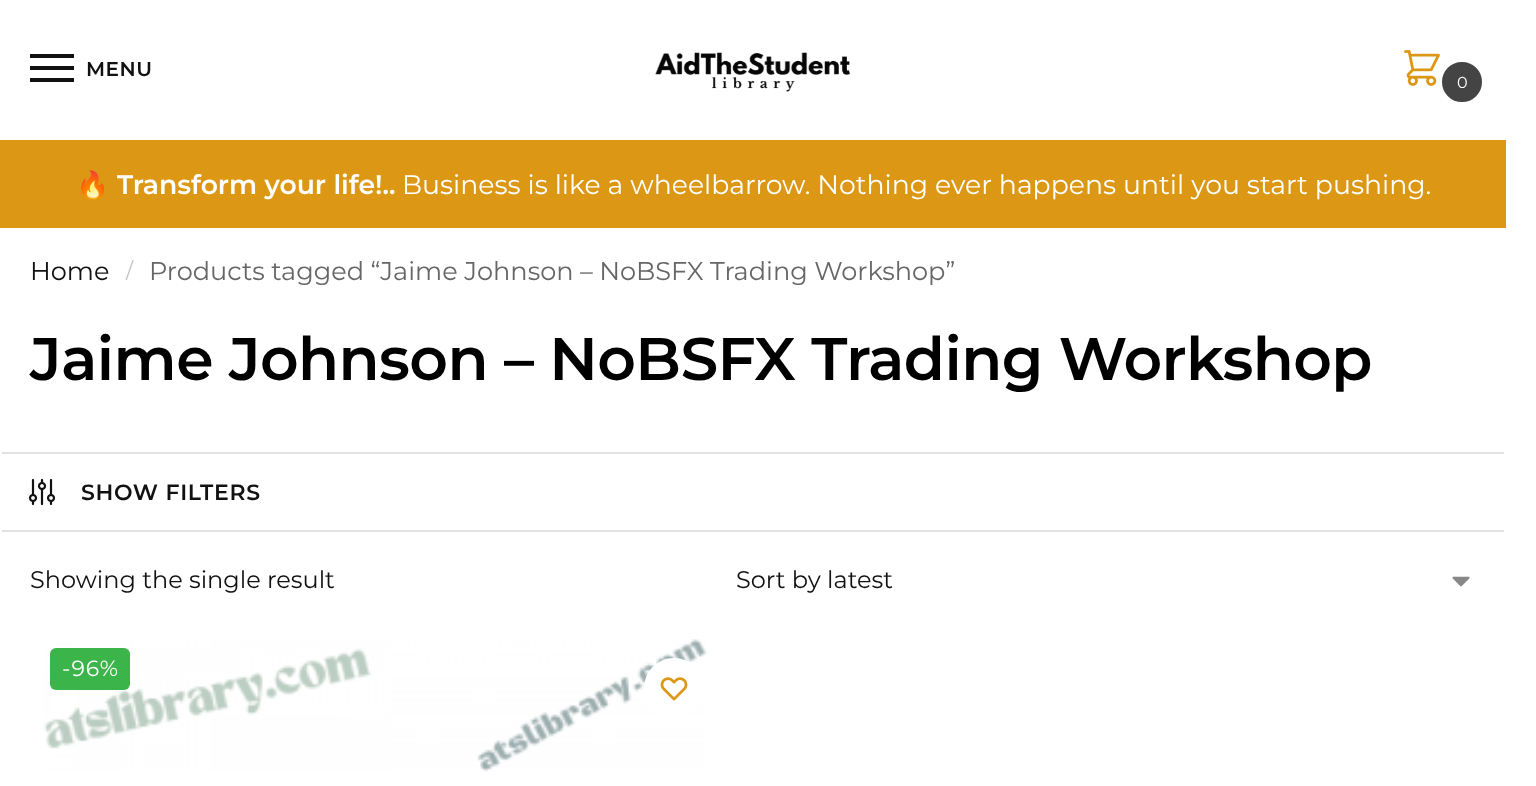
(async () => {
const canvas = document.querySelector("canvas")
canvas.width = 1536
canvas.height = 786
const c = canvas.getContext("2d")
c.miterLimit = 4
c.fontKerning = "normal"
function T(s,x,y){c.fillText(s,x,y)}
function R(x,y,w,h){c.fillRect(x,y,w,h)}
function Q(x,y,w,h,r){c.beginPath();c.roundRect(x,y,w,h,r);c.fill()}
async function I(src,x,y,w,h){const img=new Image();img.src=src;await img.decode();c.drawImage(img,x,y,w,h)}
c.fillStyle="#fff"
R(0,0,1536,786)
c.fillStyle="#111"
R(30,54,44,4)
R(30,66,44,4)
c.letterSpacing="0.5px"
c.font="600 20px Montserrat"
T("MENU",86,76)
R(30,78,44,4)
await I("1.png",655,52,195,40)
await I("2.png",1404,50,36,36)
c.fillStyle="#444"
c.beginPath()
c.arc(1462,82,19,0,7)
c.fill()
c.strokeStyle="#444"
c.lineWidth=2
c.stroke()
c.letterSpacing="0px"
c.font="16px Montserrat"
c.fillStyle="#fff"
T("0",1457,88)
c.fillStyle="#dc9814"
R(0,140,1506,88)
c.font="26.7px Noto Color Emoji"
c.fillStyle="#fff"
T("🔥",76,194)
c.font="600 26.7px Montserrat"
T("Transform your life!..",117,194)
c.font="26.7px Montserrat"
T("Business is like a wheelbarrow. Nothing ever happens until you start pushing.",402,194)
c.font="25.6px Montserrat"
c.fillStyle="#111"
T("Home",30,280)
c.font="21px Montserrat"
c.fillStyle="#c2c2c2"
T("/",126,278)
c.wordSpacing="-0.25px"
c.font="25.6px Montserrat"
c.fillStyle="#666"
T("Products tagged “Jaime Johnson – NoBSFX Trading Workshop”",149,280)
c.letterSpacing="-0.6px"
c.wordSpacing="0px"
c.font="600 60px Montserrat"
c.fillStyle="#000"
T("Jaime Johnson – NoBSFX Trading Workshop",30,380)
c.fillStyle="#e2e2e2"
R(2,452,1502,2)
R(2,530,1502,2)
await I("3.png",28,478,28,28)
c.letterSpacing="0.7px"
c.font="600 22px Montserrat"
c.fillStyle="#111"
T("SHOW FILTERS",81,500)
c.letterSpacing="0px"
c.font="24px Montserrat"
T("Showing the single result",30,588)
await I("4.png",1452,576,18,11)
T("Sort by latest",736,588)
await I("5.png",43,639,664,133)
c.fillStyle="#3bb54a"
Q(50,648,80,42,6)
c.letterSpacing="1px"
c.font="22px Montserrat"
c.fillStyle="#fff"
T("-96%",62,676)
c.beginPath()
c.arc(674,688,30,0,7)
c.fill()
await I("6.png",660,677,28,24)
})()
